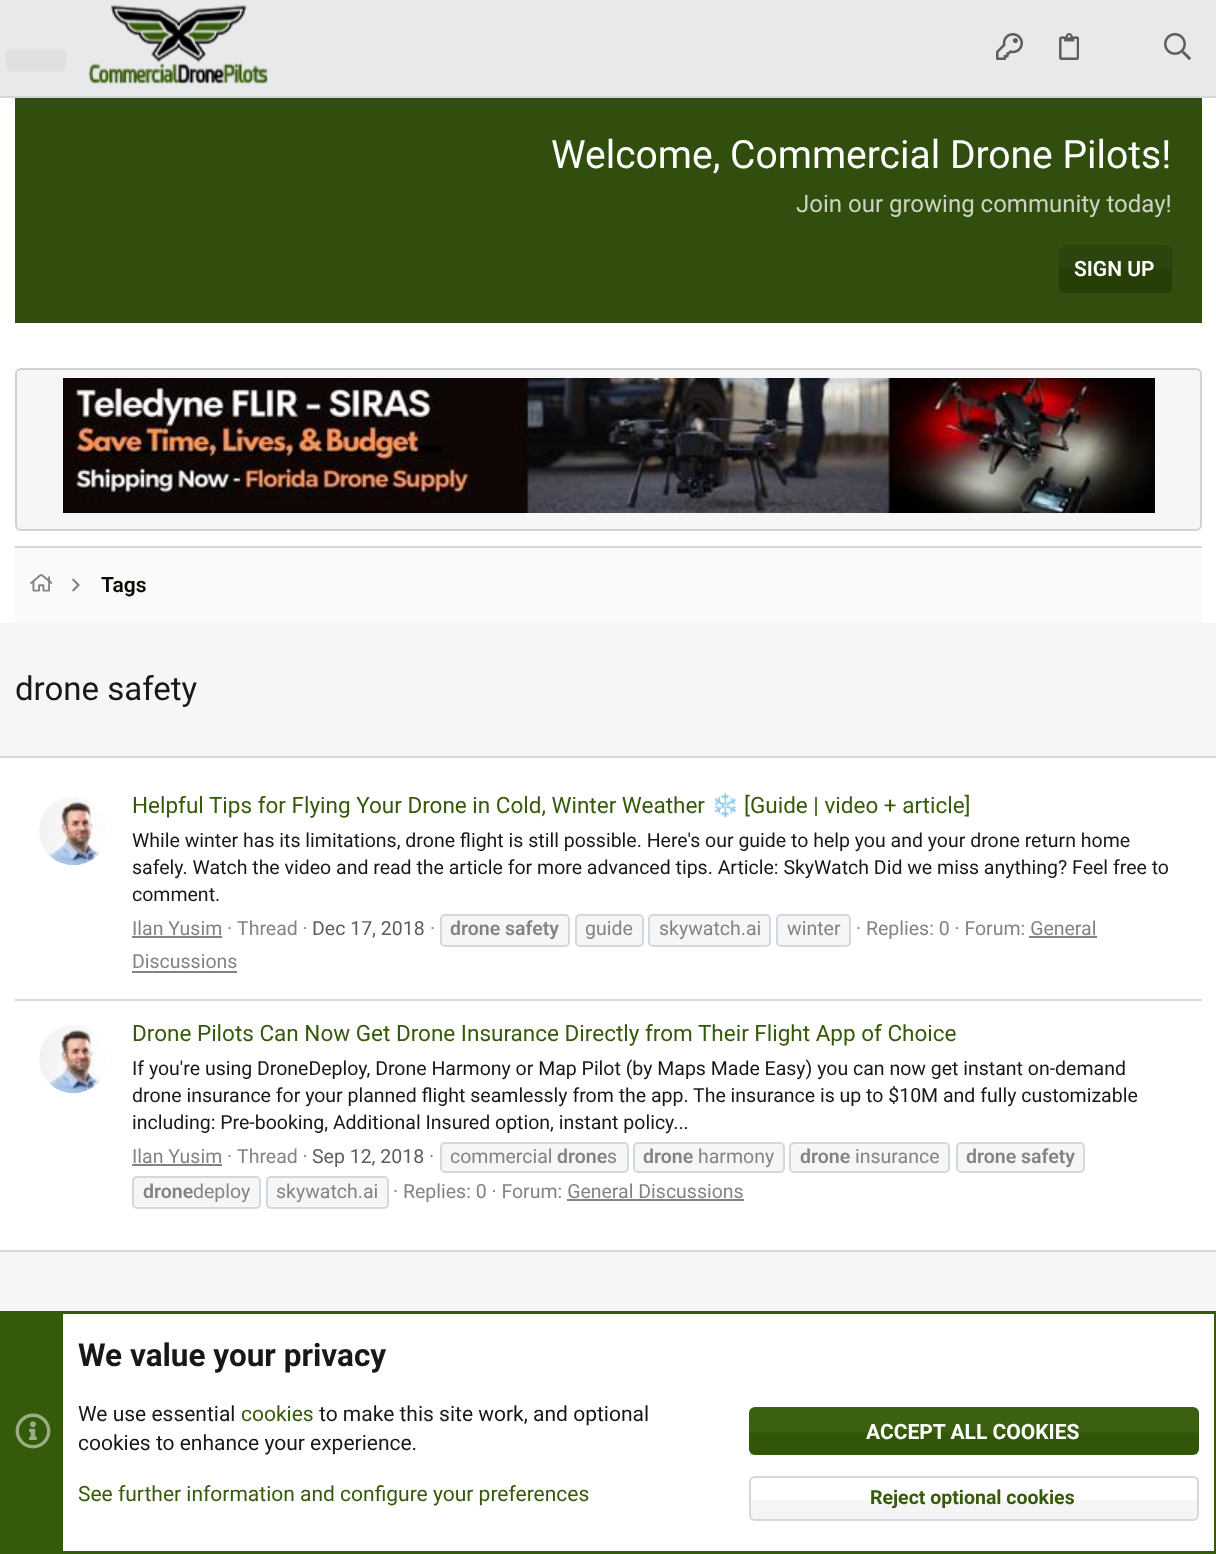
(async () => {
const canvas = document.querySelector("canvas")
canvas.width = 1216
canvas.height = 1554
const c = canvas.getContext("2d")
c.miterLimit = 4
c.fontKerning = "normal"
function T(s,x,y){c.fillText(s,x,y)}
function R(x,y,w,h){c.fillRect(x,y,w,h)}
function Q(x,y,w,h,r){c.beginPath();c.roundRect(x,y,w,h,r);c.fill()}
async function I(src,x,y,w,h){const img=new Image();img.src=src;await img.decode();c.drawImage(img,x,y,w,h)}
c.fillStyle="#fff"
R(0,0,1216,1554)
c.fillStyle="#e8e9ea"
R(0,0,1216,96)
c.fillStyle="#d3d8df"
R(0,96,1216,2)
await I("1.png",6,49,60,23)
await I("2.png",88,5,180,79)
await I("3.png",996,33,27,27)
await I("4.png",1059,33,20,27)
await I("5.png",1164,33,27,27)
c.fillStyle="#314e0e"
R(15,98,1187,225)
c.font="39px Roboto"
c.fillStyle="#fff"
T("Welcome, Commercial Drone Pilots!",551,168)
c.font="24px Roboto"
c.fillStyle="#ccd3c3"
T("Join our growing community today!",796,212)
c.fillStyle="#243e06"
Q(1059,245,113,48,6)
await I("6.png",1059,245,112,25)
c.font="600 21px Roboto"
c.fillStyle="#fff"
T("SIGN UP",1074,276)
c.fillStyle="#f6f6f6"
c.beginPath()
c.roundRect(16,369,1185,161,5)
c.fill()
c.strokeStyle="#d2d2d2"
c.lineWidth=2
c.stroke()
await I("7.png",63,378,1092,135)
c.fillStyle="#fafafa"
R(15,548,1187,75)
c.fillStyle="#d3d8df"
R(15,546,1187,2)
await I("8.png",30,574,23,18)
await I("9.png",72,578,8,14)
c.fillStyle="#070b01"
T("Tags",101,592)
c.fillStyle="#f6f6f6"
R(0,623,1216,688)
c.font="33px Roboto"
c.fillStyle="#181818"
T("drone safety",15,700)
c.fillStyle="#fff"
R(0,758,1216,492)
c.fillStyle="#d3d8df"
R(0,756,1216,2)
R(0,1250,1216,2)
await I("10.png",39,797,68,69)
c.font="22.5px Roboto"
c.fillStyle="#355a09"
T("Helpful Tips for Flying Your Drone in Cold, Winter Weather",132,813)
c.font="22.5px Noto Color Emoji"
T("❄️",711,813)
c.font="22.5px Roboto"
T("[Guide | video + article]",744,813)
c.font="19.5px Roboto"
c.fillStyle="#181818"
T("While winter has its limitations, drone flight is still possible. Here's our guide to help you and your drone return home",132,847)
T("safely. Watch the video and read the article for more advanced tips. Article: SkyWatch Did we miss anything? Feel free to",132,874)
T("comment.",132,901)
c.fillStyle="#838383"
T("Ilan Yusim ·",132,935)
R(132,936,90,2)
T("Thread ·",237,935)
c.fillStyle="#5d5d5d"
T("Dec 17, 2018",312,935)
c.fillStyle="#838383"
T("·",430,935)
c.fillStyle="#f6f6f6"
c.beginPath()
c.roundRect(441,915,128,31,4)
c.fill()
c.strokeStyle="#d3d8df"
c.stroke()
c.font="600 19.5px Roboto"
c.fillStyle="#838383"
T("drone safety",450,935)
c.fillStyle="#f6f6f6"
c.beginPath()
c.roundRect(576,915,67,31,4)
c.fill()
c.stroke()
c.font="19.5px Roboto"
c.fillStyle="#838383"
T("guide",585,935)
c.fillStyle="#f6f6f6"
c.beginPath()
c.roundRect(649,915,121,31,4)
c.fill()
c.stroke()
c.fillStyle="#838383"
T("skywatch.ai",659,935)
c.fillStyle="#f6f6f6"
c.beginPath()
c.roundRect(777,915,73,31,4)
c.fill()
c.stroke()
c.fillStyle="#838383"
T("winter",787,935)
T("· Replies: 0 · Forum: General",856,935)
T("Discussions",132,968)
R(1029,936,68,2)
R(132,971,105,2)
c.fillStyle="#d3d8df"
R(15,999,1187,2)
await I("10.png",39,1025,68,69)
c.font="22.5px Roboto"
c.fillStyle="#355a09"
T("Drone Pilots Can Now Get Drone Insurance Directly from Their Flight App of Choice",132,1041)
c.font="19.5px Roboto"
c.fillStyle="#181818"
T("If you're using DroneDeploy, Drone Harmony or Map Pilot (by Maps Made Easy) you can now get instant on-demand",132,1075)
T("drone insurance for your planned flight seamlessly from the app. The insurance is up to $10M and fully customizable",132,1102)
T("including: Pre-booking, Additional Insured option, instant policy...",132,1129)
c.fillStyle="#838383"
T("Ilan Yusim ·",132,1163)
R(132,1164,90,2)
T("·",429,1163)
c.fillStyle="#f6f6f6"
c.beginPath()
c.roundRect(441,1143,187,29,4)
c.fill()
c.stroke()
c.fillStyle="#838383"
T("commercial",450,1163)
c.font="600 19.5px Roboto"
T("drone",557,1163)
c.font="19.5px Roboto"
T("s",607,1163)
c.fillStyle="#f6f6f6"
c.beginPath()
c.roundRect(634,1143,150,29,4)
c.fill()
c.stroke()
c.font="600 19.5px Roboto"
c.fillStyle="#838383"
T("drone",643,1163)
c.font="19.5px Roboto"
T("harmony",698,1163)
c.fillStyle="#f6f6f6"
c.beginPath()
c.roundRect(790,1143,159,29,4)
c.fill()
c.stroke()
c.font="600 19.5px Roboto"
c.fillStyle="#838383"
T("drone",800,1163)
c.font="19.5px Roboto"
T("insurance",855,1163)
c.fillStyle="#f6f6f6"
c.beginPath()
c.roundRect(957,1143,127,29,4)
c.fill()
c.stroke()
c.font="600 19.5px Roboto"
c.fillStyle="#838383"
T("drone safety",966,1163)
c.fillStyle="#f6f6f6"
c.beginPath()
c.roundRect(133,1177,127,31,4)
c.fill()
c.stroke()
c.fillStyle="#838383"
T("drone",143,1198)
c.font="19.5px Roboto"
T("deploy",193,1198)
c.fillStyle="#f6f6f6"
c.beginPath()
c.roundRect(267,1177,121,31,4)
c.fill()
c.stroke()
c.fillStyle="#838383"
T("skywatch.ai",276,1198)
T("Thread ·",237,1163)
c.fillStyle="#5d5d5d"
T("Sep 12, 2018",312,1163)
c.fillStyle="#838383"
T("· Replies: 0 · Forum: General Discussions",393,1198)
R(567,1199,177,2)
c.strokeStyle="#355a09"
c.lineWidth=3
c.strokeRect(1.5,1312.5,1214,240)
c.fillStyle="#355a09"
R(3,1314,60,237)
await I("11.png",15,1413,36,36)
c.font="bold 31.5px Roboto"
c.fillStyle="#181818"
T("We value your privacy",78,1366)
c.font="21px Roboto"
T("We use essential",78,1421)
c.fillStyle="#355a09"
T("cookies",241,1421)
c.fillStyle="#181818"
T("to make this site work, and optional",319,1421)
T("cookies to enhance your experience.",78,1450)
c.fillStyle="#355a09"
T("See further information and configure your preferences",78,1501)
Q(749,1407,450,48,6)
await I("12.png",749,1407,449,47)
c.font="bold 21px Roboto"
c.fillStyle="#fff"
T("ACCEPT ALL COOKIES",866,1439)
await I("13.png",749,1500,448,21)
c.beginPath()
c.roundRect(750,1477,448,43,5)
c.strokeStyle="#d3d8df"
c.lineWidth=2
c.stroke()
c.font="bold 19.5px Roboto"
c.fillStyle="#355a09"
T("Reject optional cookies",870,1504)
})()
